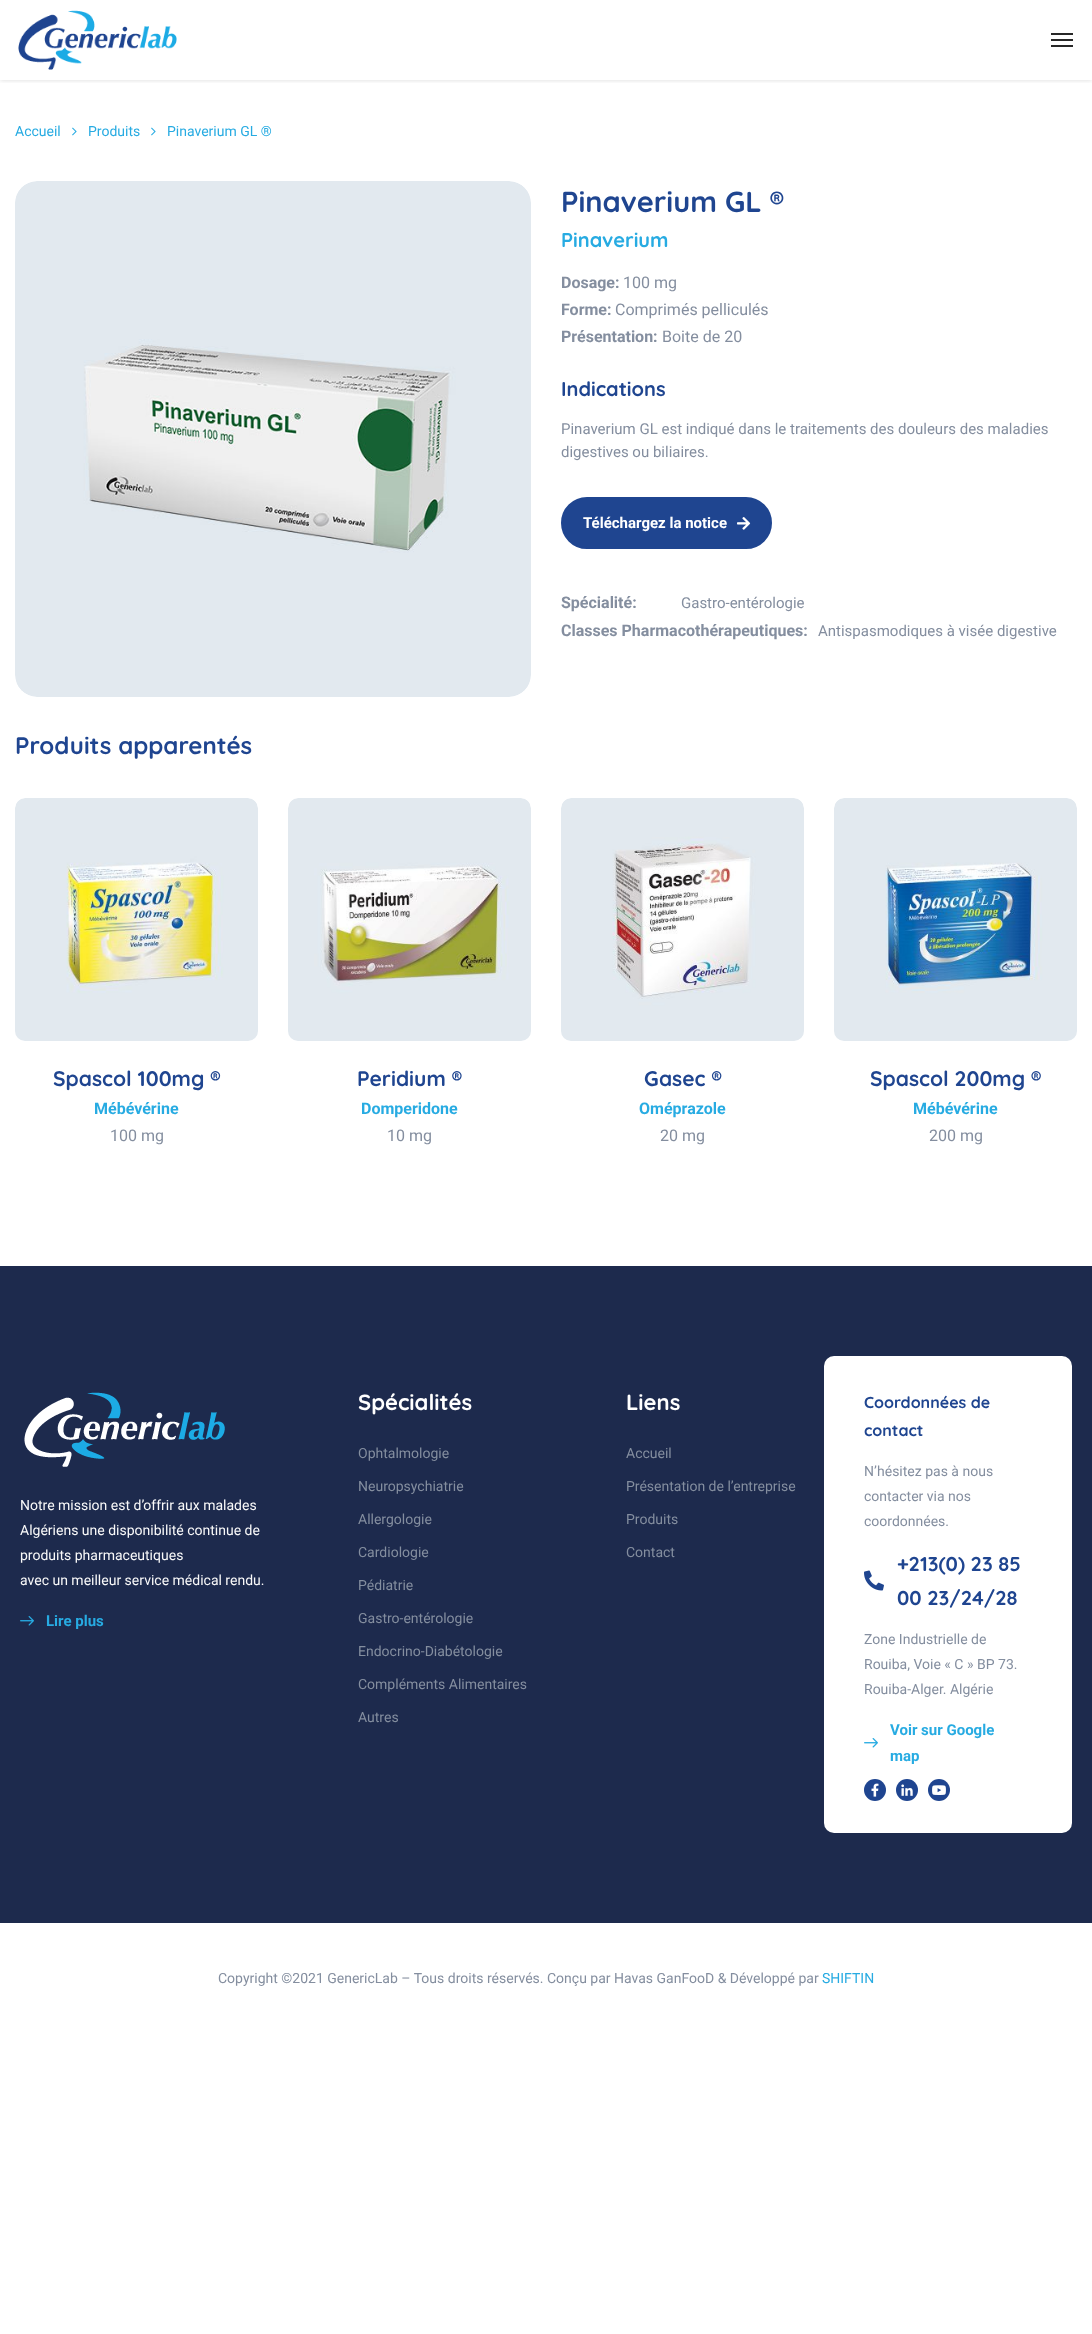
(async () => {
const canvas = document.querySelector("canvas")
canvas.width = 1092
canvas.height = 2334
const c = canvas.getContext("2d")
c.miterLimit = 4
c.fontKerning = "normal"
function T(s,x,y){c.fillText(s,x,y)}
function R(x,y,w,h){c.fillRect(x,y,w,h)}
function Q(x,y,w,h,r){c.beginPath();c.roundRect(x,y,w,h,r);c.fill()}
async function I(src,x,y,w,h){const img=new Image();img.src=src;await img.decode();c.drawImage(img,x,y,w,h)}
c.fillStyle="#fff"
R(0,0,1092,2334)
c.save()
c.beginPath()
c.rect(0,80,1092,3)
c.clip()
c.fillStyle="#00000026"
c.filter="blur(2.5px)"
c.beginPath()
c.rect(0,0,1092,80)
c.fill()
c.filter="none"
c.restore()
await I("1.png",18,10,159,60)
c.fillStyle="#282828"
R(1051,33,22,2)
R(1051,39,22,2)
R(1051,45,22,2)
c.font="14px Roboto"
c.fillStyle="#27abe2"
T("Accueil",15,136)
await I("2.png",72,127,5,9)
T("Produits",88,136)
await I("2.png",151,127,5,9)
T("Pinaverium GL ®",167,136)
await I("3.png",15,181,516,516)
c.font="bold 29px Quicksand"
c.fillStyle="#1f4590"
T("Pinaverium GL ®",561,212)
c.font="bold 20px Quicksand"
c.fillStyle="#27abe2"
T("Pinaverium",561,247)
c.font="bold 16px Roboto"
c.fillStyle="#848e9f"
T("Dosage:",561,288)
c.font="16px Roboto"
T("100 mg",623,288)
c.font="bold 16px Roboto"
T("Forme:",561,315)
c.font="16px Roboto"
T("Comprimés pelliculés",615,315)
c.font="bold 16px Roboto"
T("Présentation:",561,342)
c.font="16px Roboto"
T("Boite de 20",662,342)
c.font="bold 20px Quicksand"
c.fillStyle="#1f4590"
T("Indications",561,396)
c.font="15px Roboto"
c.fillStyle="#848e9f"
T("Pinaverium GL est indiqué dans le traitements des douleurs des maladies",561,434)
T("digestives ou biliaires.",561,457)
c.fillStyle="#1f4590"
c.beginPath()
c.roundRect(562,498,209,50,25)
c.fill()
c.strokeStyle="#1f4590"
c.lineWidth=2
c.stroke()
c.font="bold 15px Roboto"
c.fillStyle="#fff"
T("Téléchargez la notice",583,528)
await I("4.png",737,517,14,13)
c.font="bold 16px Roboto"
c.fillStyle="#848e9f"
T("Spécialité:",561,608)
c.font="15px Roboto"
T("Gastro-entérologie",681,608)
c.font="bold 16px Roboto"
T("Classes Pharmacothérapeutiques:",561,636)
c.font="15px Roboto"
T("Antispasmodiques à visée digestive",818,636)
c.font="bold 24px Quicksand"
c.fillStyle="#1f4590"
T("Produits apparentés",15,754)
await I("5.png",15,798,243,243)
c.font="bold 21px Quicksand"
T("Spascol 100mg ®",53,1086)
c.font="bold 16px Roboto"
c.fillStyle="#27abe2"
T("Mébévérine",94,1114)
c.font="16px Roboto"
c.fillStyle="#848e9f"
T("100 mg",110,1141)
await I("6.png",288,798,243,243)
c.font="bold 21px Quicksand"
c.fillStyle="#1f4590"
T("Peridium ®",357,1086)
c.font="bold 16px Roboto"
c.fillStyle="#27abe2"
T("Domperidone",361,1114)
c.font="16px Roboto"
c.fillStyle="#848e9f"
T("10 mg",387,1141)
await I("7.png",561,798,243,243)
c.font="bold 21px Quicksand"
c.fillStyle="#1f4590"
T("Gasec ®",644,1086)
c.font="bold 16px Roboto"
c.fillStyle="#27abe2"
T("Oméprazole",639,1114)
c.font="16px Roboto"
c.fillStyle="#848e9f"
T("20 mg",660,1141)
await I("8.png",834,798,243,243)
c.font="bold 21px Quicksand"
c.fillStyle="#1f4590"
T("Spascol 200mg ®",870,1086)
c.font="bold 16px Roboto"
c.fillStyle="#27abe2"
T("Mébévérine",913,1114)
c.font="16px Roboto"
c.fillStyle="#848e9f"
T("200 mg",929,1141)
c.fillStyle="#1d2a4d"
R(0,1266,1092,657)
await I("9.png",24,1392,201,75)
c.font="14px Roboto"
c.fillStyle="#f9f9f9"
T("Notre mission est d’offrir aux malades",20,1510)
T("Algériens une disponibilité continue de",20,1535)
T("produits pharmaceutiques",20,1560)
T("avec un meilleur service médical rendu.",20,1585)
await I("10.png",20,1616,14,10)
c.font="bold 15px Roboto"
c.fillStyle="#27abe2"
T("Lire plus",46,1626)
c.font="bold 22px Quicksand"
c.fillStyle="#fff"
T("Spécialités",358,1410)
c.font="14px Roboto"
c.fillStyle="#848e9f"
T("Ophtalmologie",358,1458)
T("Neuropsychiatrie",358,1491)
T("Allergologie",358,1524)
T("Cardiologie",358,1557)
T("Pédiatrie",358,1590)
T("Gastro-entérologie",358,1623)
T("Endocrino-Diabétologie",358,1656)
T("Compléments Alimentaires",358,1689)
T("Autres",358,1722)
c.font="bold 22px Quicksand"
c.fillStyle="#fff"
T("Liens",626,1410)
c.font="14px Roboto"
c.fillStyle="#848e9f"
T("Accueil",626,1458)
T("Présentation de l’entreprise",626,1491)
T("Produits",626,1524)
T("Contact",626,1557)
c.fillStyle="#fff"
Q(824,1356,248,477,10)
c.font="bold 16px Quicksand"
c.fillStyle="#1f4590"
T("Coordonnées de",864,1408)
T("contact",864,1436)
c.font="14px Roboto"
c.fillStyle="#848e9f"
T("N’hésitez pas à nous",864,1476)
T("contacter via nos",864,1501)
T("coordonnées.",864,1526)
await I("11.png",864,1570,20,21)
c.font="bold 20px Quicksand"
c.fillStyle="#1f4590"
T("+213(0) 23 85",897,1571)
T("00 23/24/28",897,1605)
c.font="14px Roboto"
c.fillStyle="#848e9f"
T("Zone Industrielle de",864,1644)
T("Rouiba, Voie « C » BP 73.",864,1669)
T("Rouiba-Alger. Algérie",864,1694)
await I("12.png",864,1738,14,10)
c.font="bold 15px Roboto"
c.fillStyle="#27abe2"
T("Voir sur Google",890,1735)
T("map",890,1761)
c.fillStyle="#1f4590"
c.beginPath()
c.arc(875,1790,11,0,7)
c.fill()
await I("13.png",871,1783,8,14)
c.beginPath()
c.arc(907,1790,11,0,7)
c.fill()
await I("14.png",901,1784,12,12)
c.beginPath()
c.arc(939,1790,11,0,7)
c.fill()
await I("15.png",932,1785,14,10)
c.font="14px Roboto"
c.fillStyle="#848e9f"
T("Copyright ©2021 GenericLab – Tous droits réservés. Conçu par Havas GanFooD & Développé par",218,1983)
c.fillStyle="#27abe2"
T("SHIFTIN",822,1983)
})()
